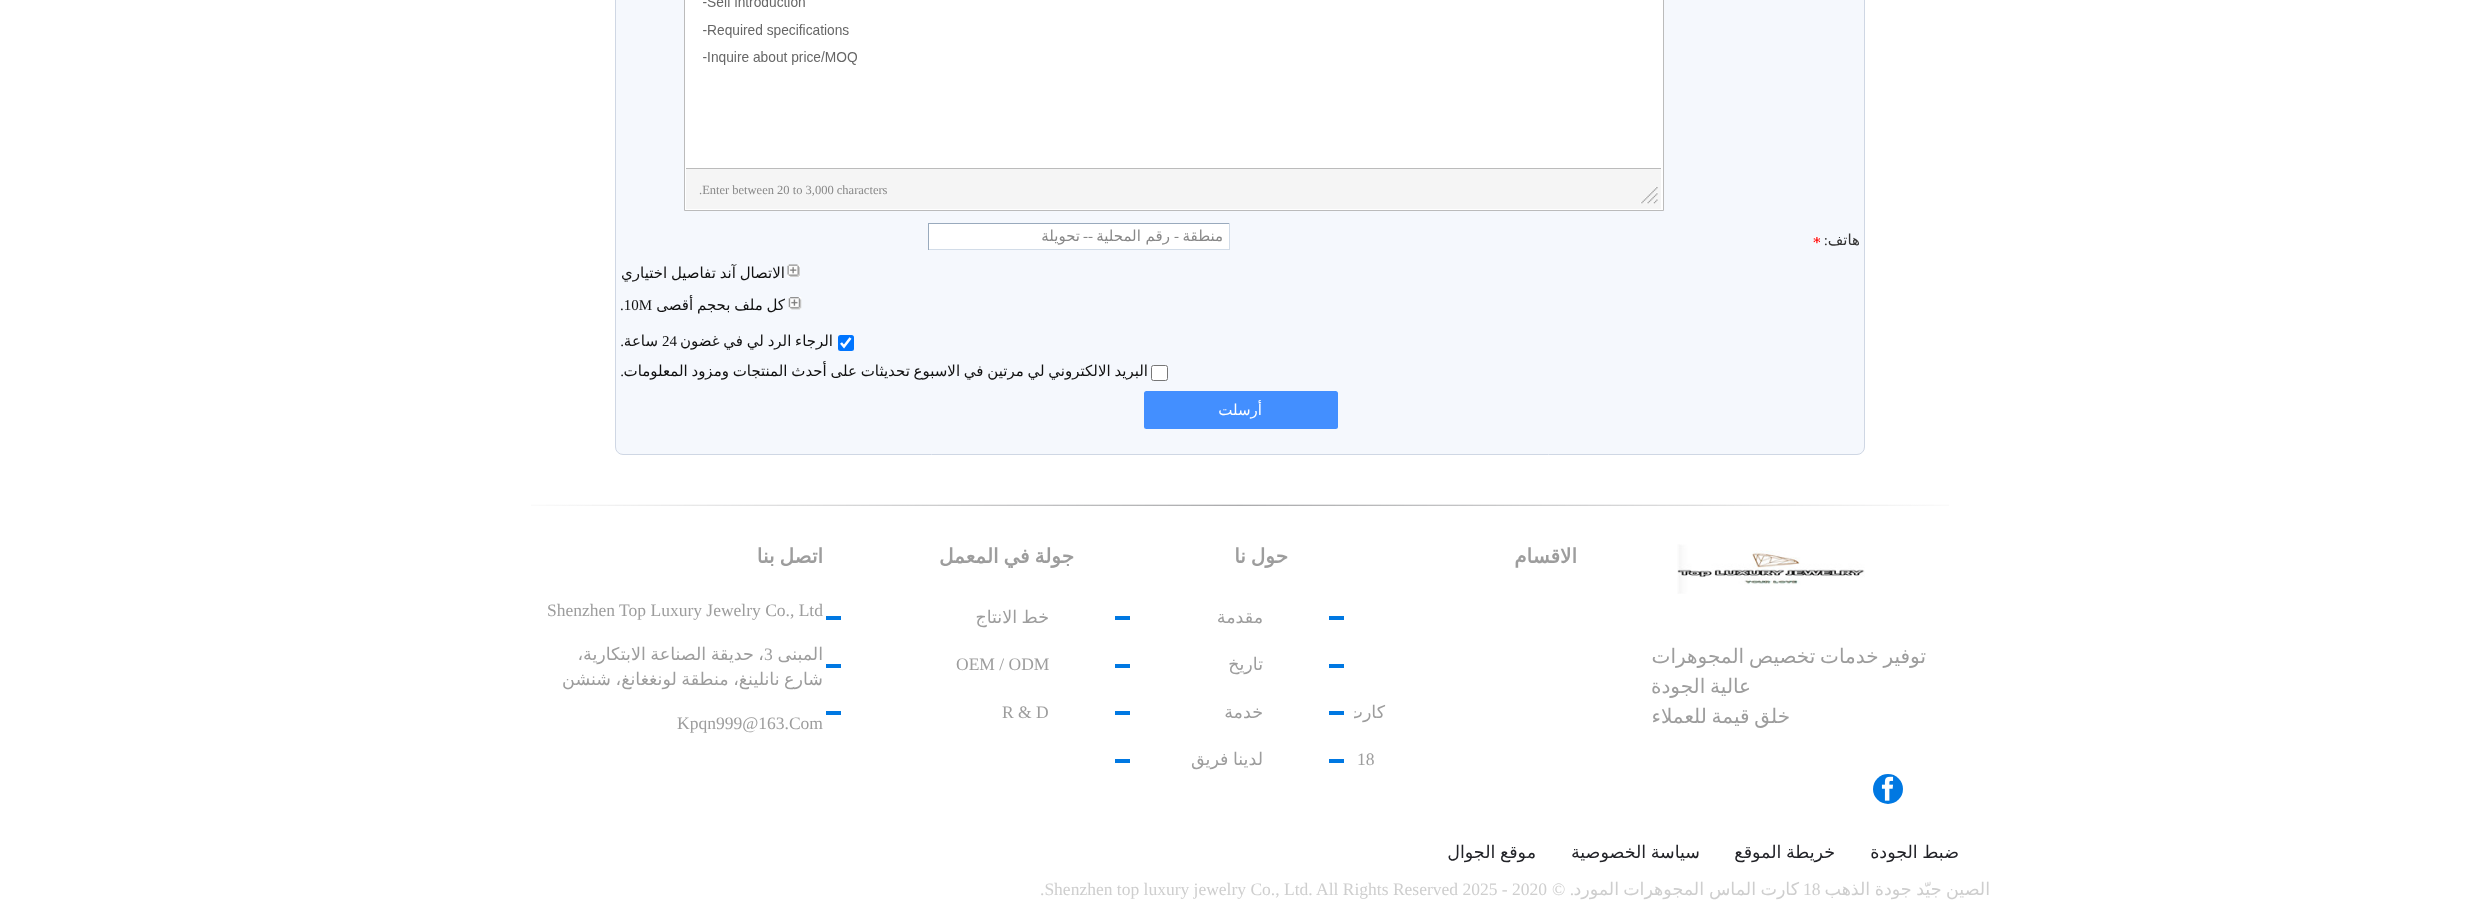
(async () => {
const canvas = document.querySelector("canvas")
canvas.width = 2479
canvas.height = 902
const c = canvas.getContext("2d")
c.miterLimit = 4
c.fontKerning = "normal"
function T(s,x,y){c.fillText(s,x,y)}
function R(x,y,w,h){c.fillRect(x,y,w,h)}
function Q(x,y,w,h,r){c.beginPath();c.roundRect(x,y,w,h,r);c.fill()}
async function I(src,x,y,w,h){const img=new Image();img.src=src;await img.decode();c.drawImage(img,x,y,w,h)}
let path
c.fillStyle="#fff"
R(0,0,2479,902)
c.fillStyle="#f5f8fd"
c.beginPath()
c.roundRect(615.5,-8.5,1249,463,7.5)
c.fill()
c.strokeStyle="#cfd7e4"
c.stroke()
c.fillStyle="#fff"
c.beginPath()
c.rect(684.5,-.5,979,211)
c.fill()
c.strokeStyle="#bbb"
c.stroke()
await I("1.png",703,0,154,65)
c.fillStyle="#f5f5f5"
R(686,169,975,40)
c.fillStyle="#bbb"
R(686,168,975,1)
await I("2.png",1640,187,18,17)
c.font="12.5px Liberation Serif"
c.fillStyle="#888"
T(".Enter between 20 to 3,000 characters",699,194)
c.direction="rtl"
c.font="15px DejaVu Sans"
c.fillStyle="#333"
T("هاتف",1860,245)
c.font="15px Liberation Serif"
T(":",1828,245)
await I("3.png",1813,237,7,7)
c.fillStyle="#fff"
R(929,224,300,25)
c.fillStyle="#99aabd"
R(928,223,302,1)
c.fillStyle="#d2dce8"
R(1229,223,1,27)
R(928,249,302,1)
c.fillStyle="#99aabd"
R(928,223,1,27)
c.font="15px DejaVu Sans"
c.fillStyle="#888"
T("منطقة",1223,241)
c.font="15px Liberation Serif"
T("-",1179,241)
c.font="15px DejaVu Sans"
T("رقم المحلية",1170,241)
c.font="15px Liberation Serif"
T("--",1093,241)
c.font="15px DejaVu Sans"
T("تحويلة",1080,241)
await I("4.png",787,264,13,13)
c.wordSpacing="-1px"
c.fillStyle="#111"
T("الاتصال آند تفاصيل اختياري",785,278)
await I("5.png",788,297,14,13)
T("كل ملف بحجم أقصى",785,310)
c.wordSpacing="0px"
c.direction="ltr"
c.font="15px Liberation Serif"
T(".10M",620,310)
c.fillStyle="#0075ff"
Q(838,335,16,16,2.5)
path = new Path2D("M841 343l3 3.5l6.5-8.5")
c.strokeStyle="#fff"
c.lineWidth=2.6
c.stroke(path)
c.wordSpacing="-1px"
c.direction="rtl"
c.font="15px DejaVu Sans"
c.fillStyle="#111"
T("الرجاء الرد لي في غضون",833,346)
c.wordSpacing="0px"
c.direction="ltr"
c.font="15px Liberation Serif"
T("24",662,346)
c.direction="rtl"
c.font="15px DejaVu Sans"
T("ساعة",658,346)
c.font="15px Liberation Serif"
T(".",624,346)
c.fillStyle="#fff"
c.beginPath()
c.roundRect(1151.5,365.5,16,15,2)
c.fill()
c.strokeStyle="#767676"
c.lineWidth=1
c.stroke()
c.wordSpacing="-1px"
c.font="15px DejaVu Sans"
c.fillStyle="#111"
T("البريد الالكتروني لي مرتين في الاسبوع تحديثات على أحدث المنتجات ومزود المعلومات",1148,376)
c.wordSpacing="0px"
c.font="15px Liberation Serif"
T(".",624,376)
c.fillStyle="#438fff"
Q(1144,391,194,38,2.5)
c.font="15px DejaVu Sans"
c.fillStyle="#fff"
T("أرسلت",1262,415)
await I("6.png",531,504,1418,2)
await I("7.png",1677,544,188,50)
c.wordSpacing="-1.5px"
c.font="20px DejaVu Sans"
c.fillStyle="#9d9d9d"
T("توفير خدمات تخصيص المجوهرات",1926,663)
T("عالية الجودة",1751,693)
T("خلق قيمة للعملاء",1790,723)
c.fillStyle="#0078e2"
c.beginPath()
c.arc(1888,789,15,0,7)
c.fill()
await I("8.png",1881,776,13,25)
c.wordSpacing="0px"
c.font="bold 20px DejaVu Sans"
c.fillStyle="#9d9d9d"
T("الاقسام",1577,563)
c.fillStyle="#0078e2"
R(1329,616,15,4)
R(1329,664,15,4)
c.save()
c.beginPath()
c.rect(1354,694,197,37)
c.clip()
c.font="17.5px DejaVu Sans"
c.fillStyle="#9d9d9d"
T("كارت",1385,718)
c.restore()
R(1329,711,15,4)
c.direction="ltr"
c.font="17.5px Liberation Serif"
c.fillStyle="#9d9d9d"
T("18",1357,765)
c.fillStyle="#0078e2"
R(1329,759,15,4)
c.wordSpacing="-1.5px"
c.direction="rtl"
c.font="bold 20px DejaVu Sans"
c.fillStyle="#9d9d9d"
T("حول نا",1288,563)
c.wordSpacing="0px"
c.font="17.5px DejaVu Sans"
T("مقدمة",1263,623)
c.fillStyle="#0078e2"
R(1115,616,15,4)
c.fillStyle="#9d9d9d"
T("تاريخ",1263,670)
c.fillStyle="#0078e2"
R(1115,664,15,4)
c.fillStyle="#9d9d9d"
T("خدمة",1263,718)
c.fillStyle="#0078e2"
R(1115,711,15,4)
c.wordSpacing="-1px"
c.fillStyle="#9d9d9d"
T("لدينا فريق",1263,765)
c.fillStyle="#0078e2"
R(1115,759,15,4)
c.wordSpacing="-1.5px"
c.font="bold 20px DejaVu Sans"
c.fillStyle="#9d9d9d"
T("جولة في المعمل",1074,563)
c.wordSpacing="-1px"
c.font="17.5px DejaVu Sans"
T("خط الانتاج",1049,623)
c.fillStyle="#0078e2"
R(826,616,15,4)
c.wordSpacing="0px"
c.direction="ltr"
c.font="17.5px Liberation Serif"
c.fillStyle="#9d9d9d"
T("OEM / ODM",956,670)
c.fillStyle="#0078e2"
R(826,664,15,4)
c.fillStyle="#9d9d9d"
T("R & D",1002,718)
c.fillStyle="#0078e2"
R(826,711,15,4)
c.wordSpacing="-1.5px"
c.direction="rtl"
c.font="bold 20px DejaVu Sans"
c.fillStyle="#9d9d9d"
T("اتصل بنا",823,563)
c.wordSpacing="0px"
c.direction="ltr"
c.font="17.5px Liberation Serif"
T("Shenzhen Top Luxury Jewelry Co., Ltd",547,616)
c.direction="rtl"
c.font="17.5px DejaVu Sans"
T("المبنى",823,660)
c.wordSpacing="-1px"
T("، حديقة الصناعة الابتكارية،",764,660)
c.wordSpacing="0px"
c.direction="ltr"
c.font="17.5px Liberation Serif"
T("3",764,660)
c.wordSpacing="-1px"
c.direction="rtl"
c.font="17.5px DejaVu Sans"
T("شارع نانلينغ، منطقة لونغغانغ، شنشن",823,685)
c.wordSpacing="0px"
c.direction="ltr"
c.font="17.5px Liberation Serif"
T("Kpqn999@163.Com",677,729)
c.wordSpacing="-1px"
c.direction="rtl"
c.font="17.5px DejaVu Sans"
c.fillStyle="#222328"
T("ضبط الجودة",1959,858)
T("خريطة الموقع",1835,858)
T("سياسة الخصوصية",1700,858)
T("موقع الجوال",1536,858)
c.fillStyle="#cecece"
T("الصين جيّد جودة الذهب",1990,895)
c.wordSpacing="0px"
c.direction="ltr"
c.font="17.5px Liberation Serif"
T("18",1803,895)
c.direction="rtl"
c.font="17.5px DejaVu Sans"
T("كارت",1799,895)
T("الماس",1756,895)
T("المجوهرات",1704,895)
T("المورد",1619,895)
c.font="17.5px Liberation Serif"
T(". ©",1574,895)
c.direction="ltr"
T(".Shenzhen top luxury jewelry Co., Ltd. All Rights Reserved 2025 - 2020",1040,895)
})()
